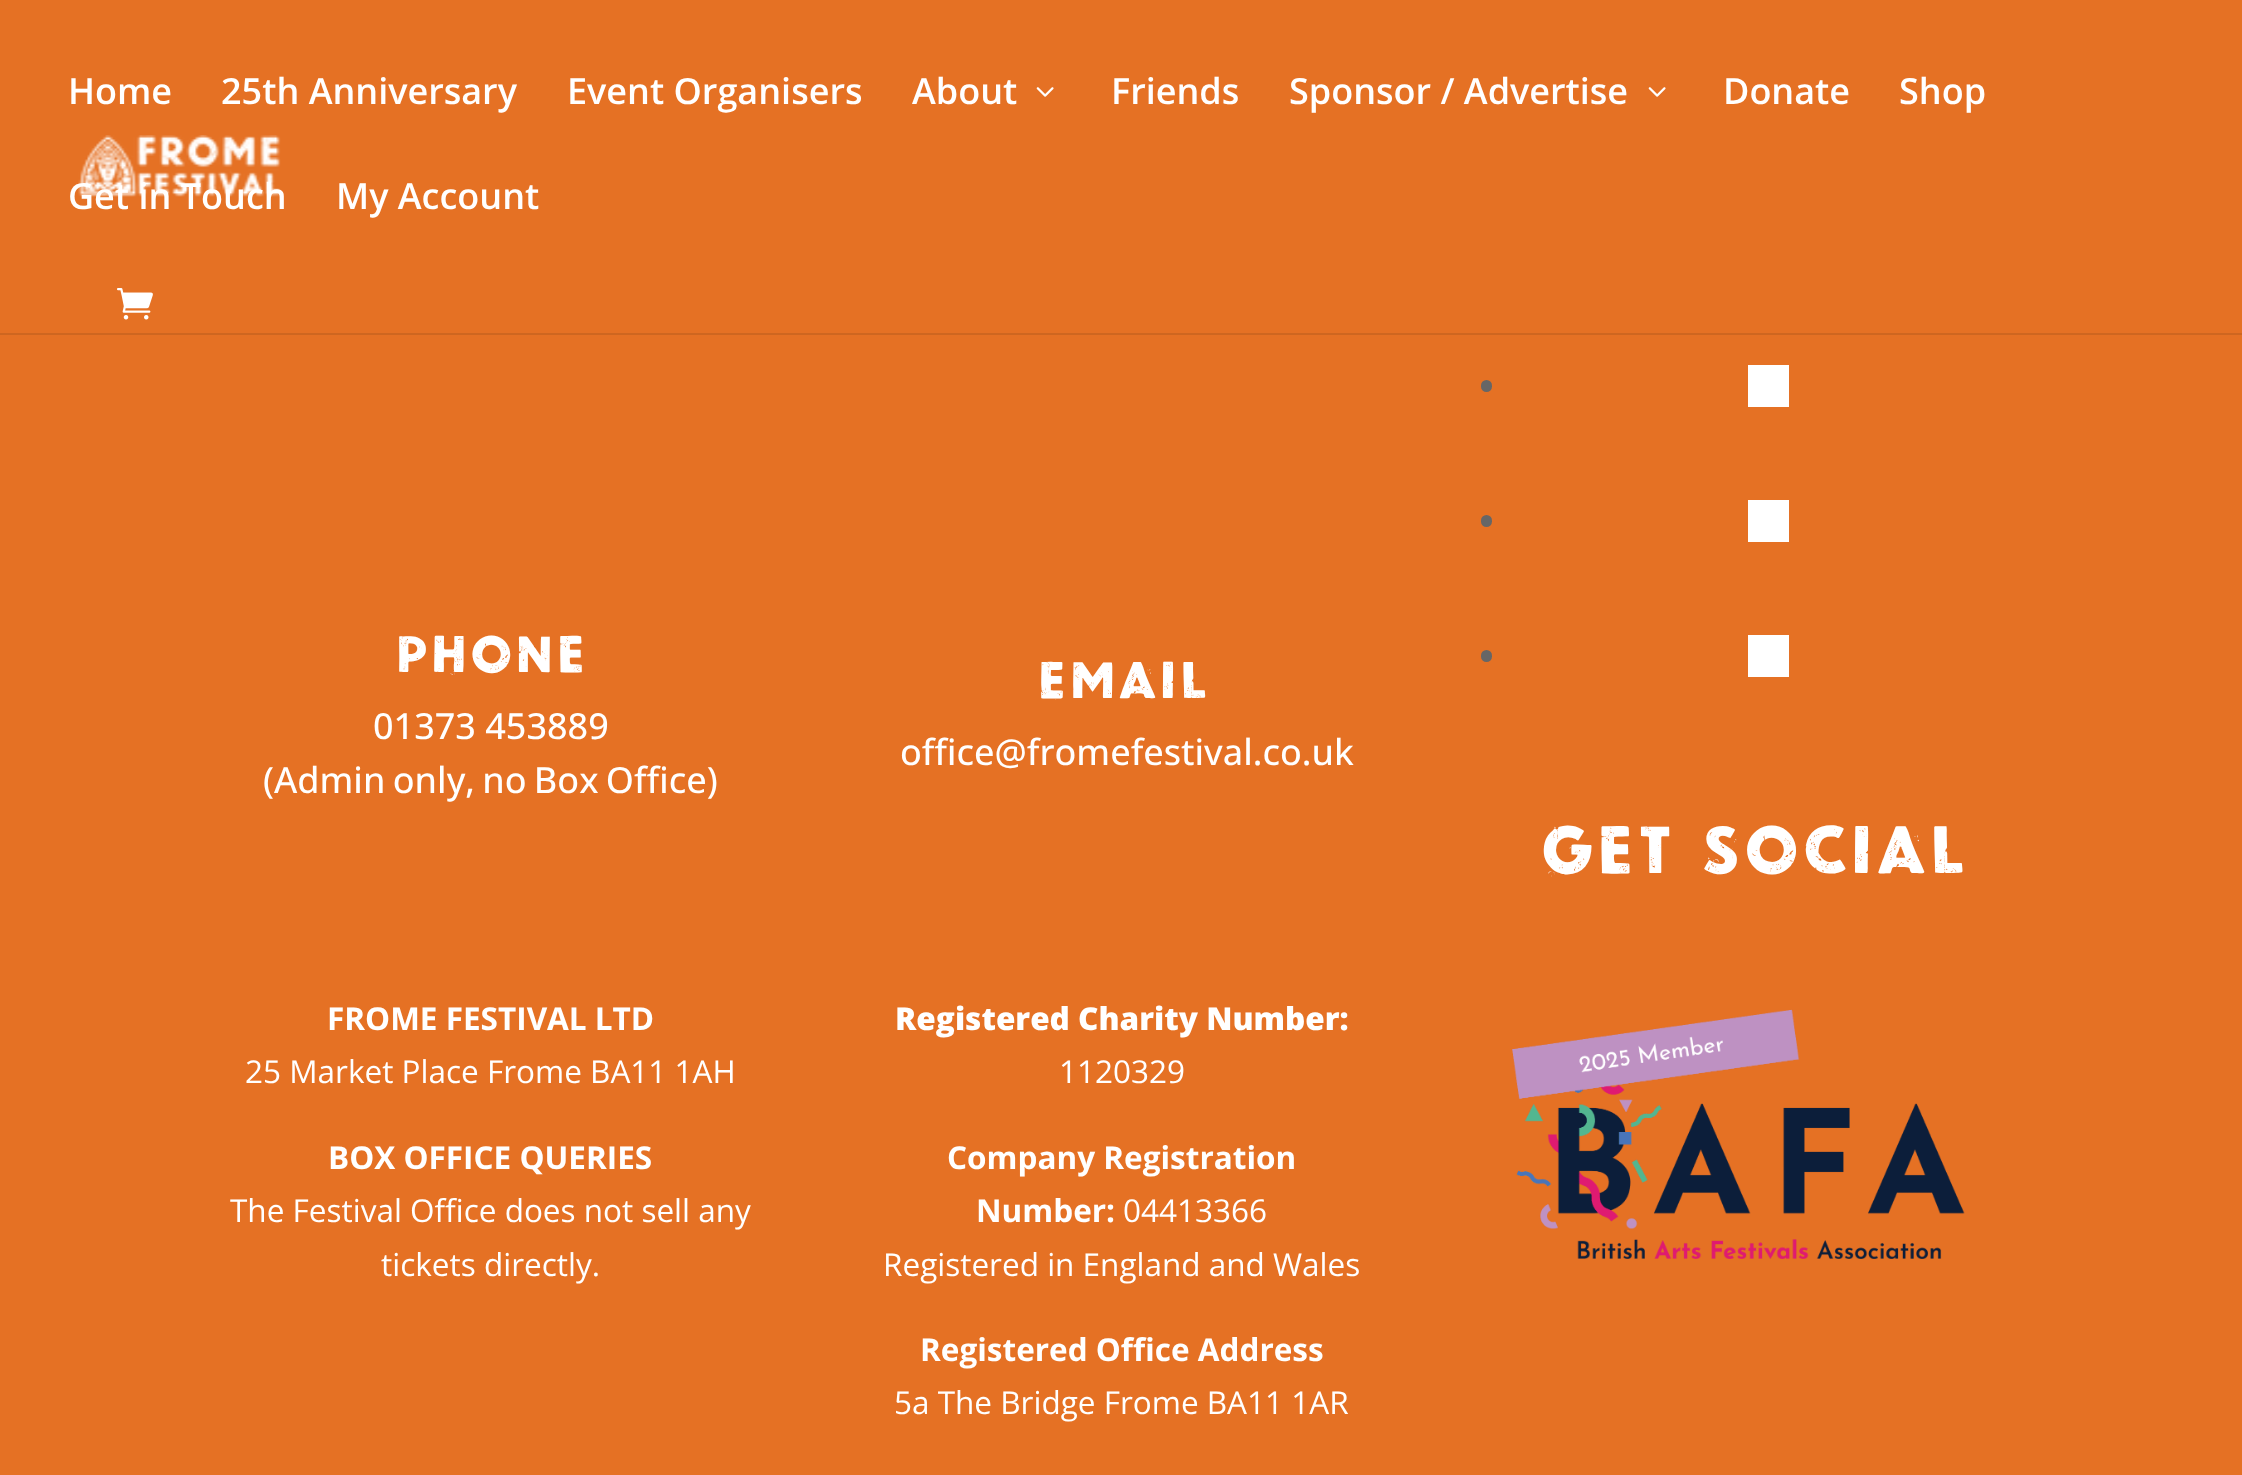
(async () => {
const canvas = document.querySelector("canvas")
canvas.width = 2242
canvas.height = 1475
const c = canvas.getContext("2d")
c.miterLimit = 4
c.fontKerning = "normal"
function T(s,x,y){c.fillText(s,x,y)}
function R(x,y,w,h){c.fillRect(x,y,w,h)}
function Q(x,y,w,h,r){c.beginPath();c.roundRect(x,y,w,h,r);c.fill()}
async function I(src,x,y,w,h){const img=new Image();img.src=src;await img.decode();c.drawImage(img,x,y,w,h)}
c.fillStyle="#e57124"
R(0,0,2242,1475)
c.fillStyle="#ce6620"
R(0,333,2242,2)
c.font="600 36px Open Sans"
c.fillStyle="#fff"
T("Home",68,104)
T("25th Anniversary",221,104)
T("Event Organisers",567,104)
T("About",912,104)
await I("1.png",1036,87,18,10)
T("Friends",1111,104)
T("Sponsor / Advertise",1289,104)
await I("1.png",1648,87,18,10)
T("Donate",1723,104)
T("Shop",1899,104)
await I("3.png",78,135,203,62)
T("Get in Touch",68,209)
T("My Account",336,209)
await I("2.png",117,288,36,32)
c.font="bold 52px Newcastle"
T("Phone",394,672)
c.font="500 36px Open Sans"
T("01373 453889",373,739)
c.wordSpacing="-2px"
T("(Admin only, no Box Office)",263,793)
c.wordSpacing="0px"
c.font="bold 52px Newcastle"
T("Email",1036,698)
c.font="500 36px Open Sans"
T("office@fromefestival.co.uk",900,765)
c.fillStyle="#666"
Q(1481,380,11,12,5.5)
c.fillStyle="#fff"
R(1748,365,41,42)
c.fillStyle="#666"
Q(1481,515,11,12,5.5)
c.fillStyle="#fff"
R(1748,500,41,42)
c.fillStyle="#666"
Q(1481,650,11,12,5.5)
c.fillStyle="#fff"
R(1748,635,41,42)
c.font="bold 67.5px Newcastle"
T("Get Social",1539,873)
c.font="bold 31.5px Open Sans"
T("FROME FESTIVAL LTD",327,1030)
c.font="31.5px Open Sans"
T("25 Market Place Frome BA11 1AH",245,1083)
c.font="bold 31.5px Open Sans"
T("BOX OFFICE QUERIES",328,1169)
c.font="31.5px Open Sans"
T("The Festival Office does not sell any",230,1222)
T("tickets directly.",381,1276)
c.font="800 31.5px Open Sans"
T("Registered Charity Number:",895,1030)
c.font="31.5px Open Sans"
T("1120329",1059,1083)
c.font="bold 31.5px Open Sans"
T("Company Registration",947,1169)
T("Number:",976,1222)
c.font="31.5px Open Sans"
T("04413366",1123,1222)
T("Registered in England and Wales",883,1276)
c.font="bold 31.5px Open Sans"
T("Registered Office Address",920,1361)
c.font="31.5px Open Sans"
T("5a The Bridge Frome BA11 1AR",894,1414)
await I("4.png",1512,1009,453,250)
})()
